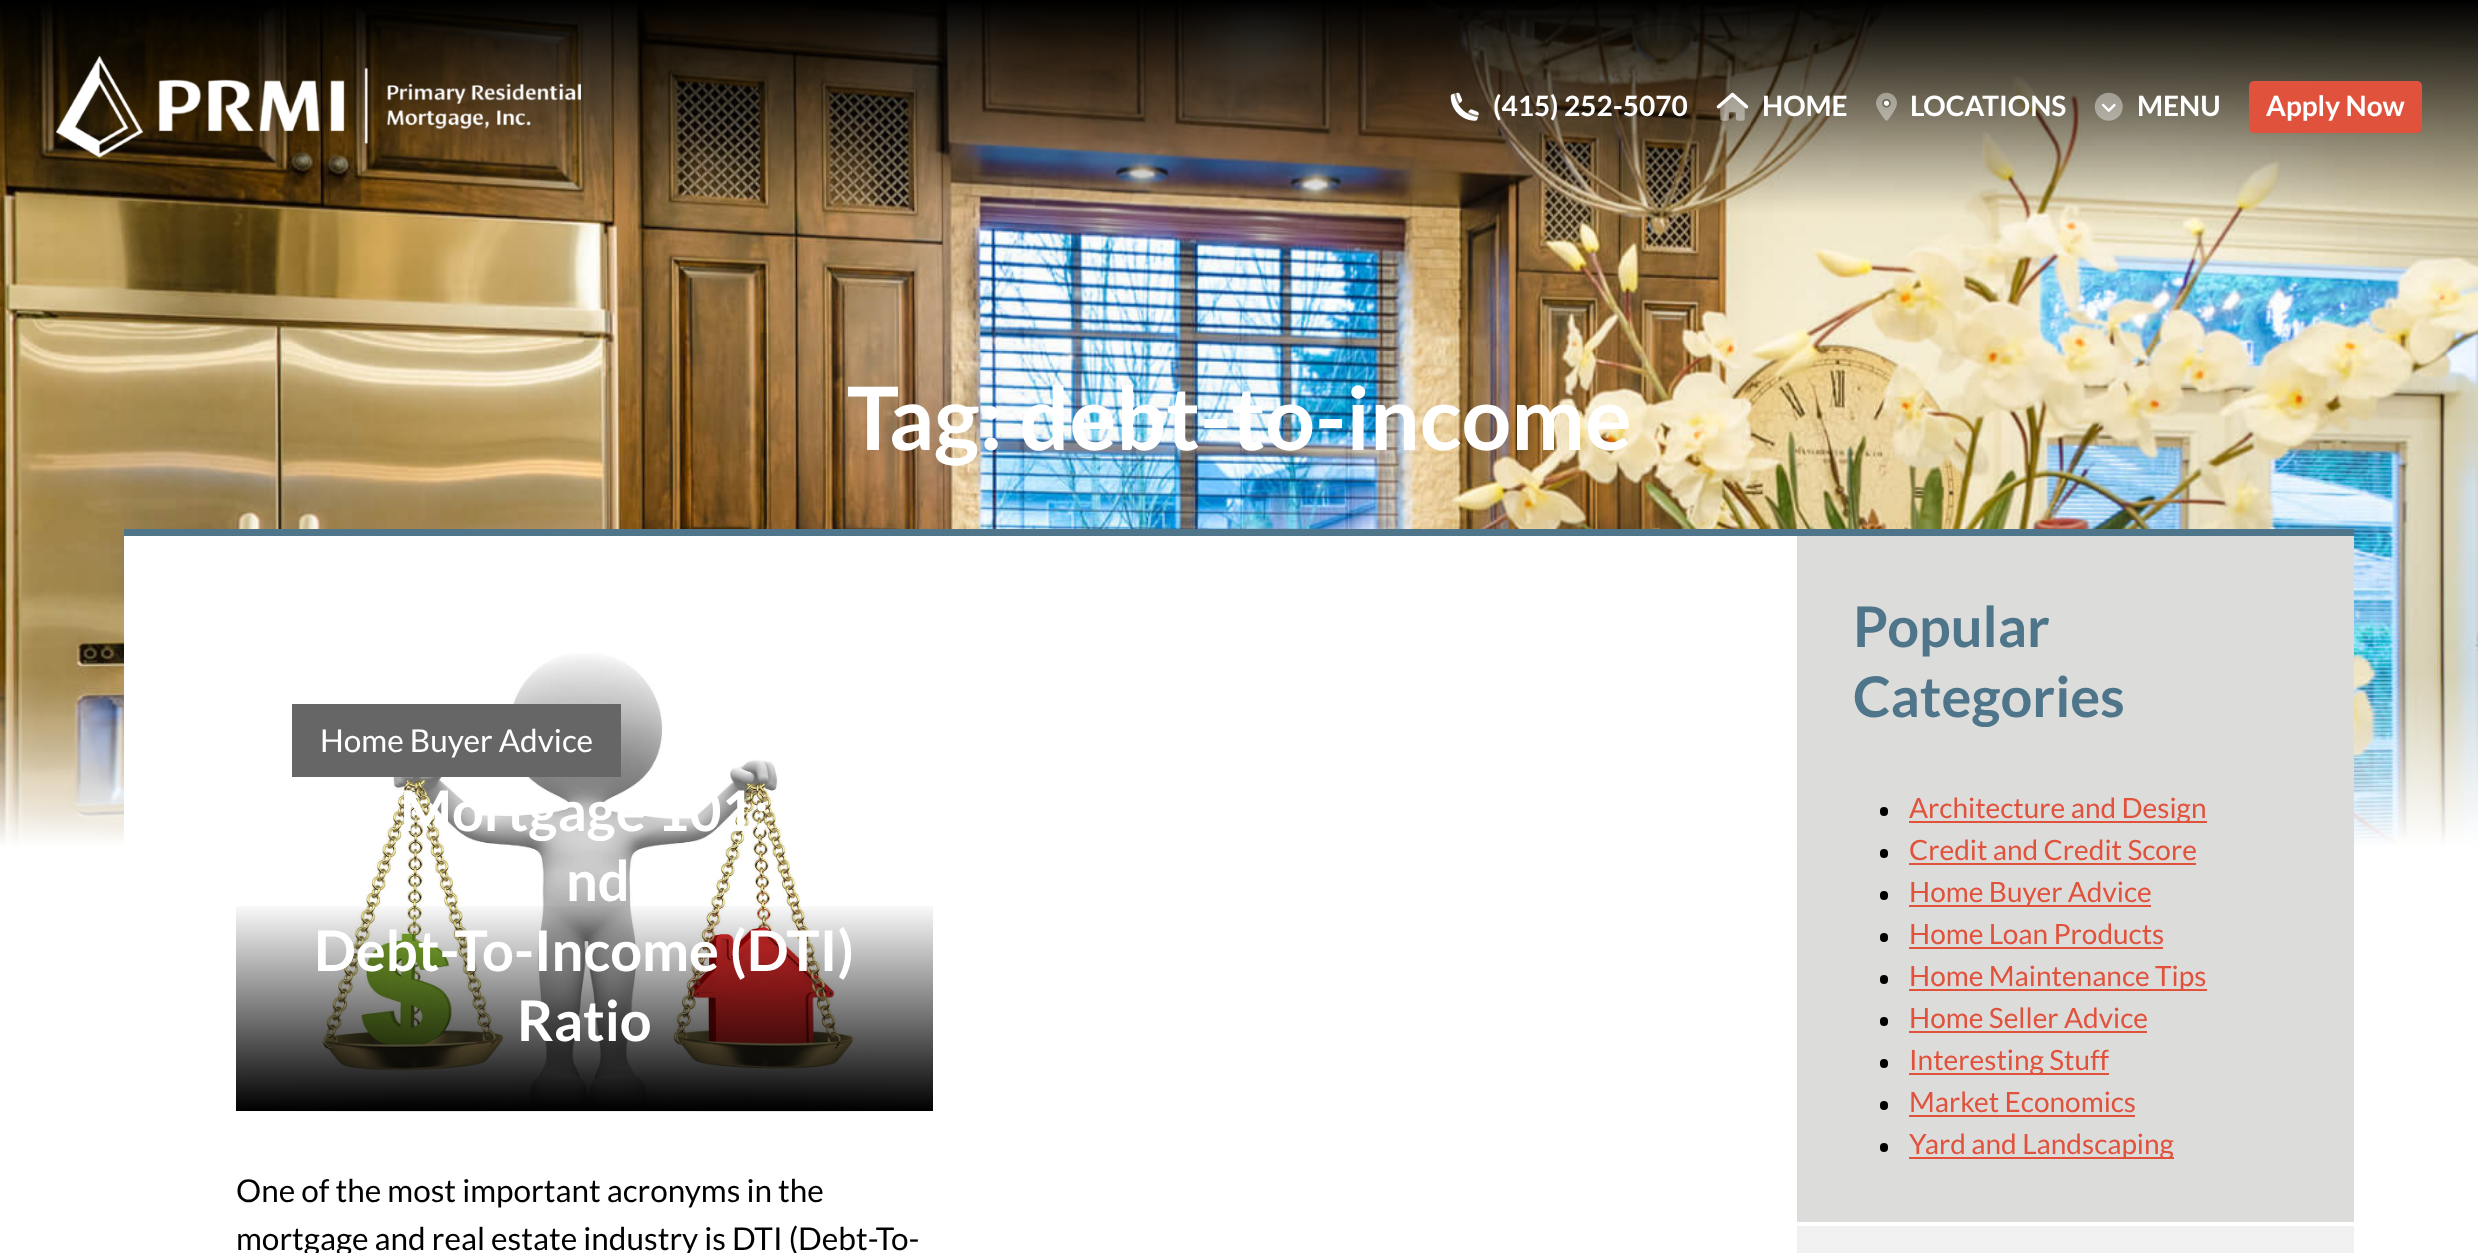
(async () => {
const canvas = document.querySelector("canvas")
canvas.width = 2478
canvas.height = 1253
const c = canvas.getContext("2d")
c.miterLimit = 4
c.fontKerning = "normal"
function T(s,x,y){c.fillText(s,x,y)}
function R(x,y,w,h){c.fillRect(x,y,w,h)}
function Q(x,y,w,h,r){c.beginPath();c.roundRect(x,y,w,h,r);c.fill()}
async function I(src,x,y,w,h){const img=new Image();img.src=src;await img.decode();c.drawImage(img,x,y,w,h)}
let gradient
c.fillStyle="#fff"
R(0,0,2478,1253)
await I("6.png",0,0,2478,847)
await I("1.png",56,56,525,102)
await I("2.png",1450,92,29,29)
c.font="bold 28px Lato"
T("(415) 252-5070",1493,116)
await I("3.png",1716,92,33,29)
T("HOME",1762,116)
await I("4.png",1876,92,21,29)
T("LOCATIONS",1910,116)
await I("5.png",2094,92,29,29)
T("MENU",2137,116)
c.fillStyle="#e1523d"
Q(2249,81,173,52,5)
c.fillStyle="#fff"
T("Apply Now",2266,116)
c.fillStyle="#4f758b"
R(124,529,2230,7)
c.font="bold 87.5px Lato"
c.fillStyle="#fff"
T("Tag: debt-to-income",847,450)
R(124,536,1673,309)
await I("7.png",236,653,697,459)
c.fillStyle="#666"
R(292,704,329,73)
c.font="31.5px Lato"
c.fillStyle="#fff"
T("Home Buyer Advice",320,752)
c.font="bold 56px Lato"
T("Mortgage 101:",400,831)
T("nd",566,901)
gradient = c.createLinearGradient(585,901,585,1111)
gradient.addColorStop(0,"#00000000")
gradient.addColorStop(1,"#000")
c.fillStyle = gradient
R(236,906,697,205)
c.fillStyle="#fff"
T("Debt-To-Income (DTI)",314,971)
T("Ratio",517,1041)
c.font="31.5px Lato"
c.fillStyle="#000"
T("One of the most important acronyms in the",236,1202)
T("mortgage and real estate industry is DTI (Debt-To-",236,1250)
c.fillStyle="#f0f0f0"
R(1797,1226,557,27)
c.fillStyle="#dcdcda"
R(1797,536,557,686)
c.font="bold 56px Lato"
c.fillStyle="#4f758b"
T("Popular",1853,647)
T("Categories",1853,717)
c.fillStyle="#000"
Q(1880,807,8,9,4)
c.fillStyle="#e1523d"
R(1909,821,298,2)
c.font="28px Lato"
T("Architecture and Design",1909,818)
c.fillStyle="#000"
Q(1880,849,8,9,4)
c.fillStyle="#e1523d"
T("Credit and Credit Score",1909,860)
R(1909,863,287,2)
c.fillStyle="#000"
Q(1880,891,8,9,4)
c.fillStyle="#e1523d"
R(1909,905,242,2)
T("Home Buyer Advice",1909,902)
c.fillStyle="#000"
Q(1880,933,8,9,4)
c.fillStyle="#e1523d"
T("Home Loan Products",1909,944)
R(1909,947,254,2)
c.fillStyle="#000"
Q(1880,975,8,9,4)
c.fillStyle="#e1523d"
R(1909,989,298,2)
T("Home Maintenance Tips",1909,986)
c.fillStyle="#000"
Q(1880,1017,8,9,4)
c.fillStyle="#e1523d"
T("Home Seller Advice",1909,1028)
R(1909,1031,238,2)
c.fillStyle="#000"
Q(1880,1059,8,9,4)
c.fillStyle="#e1523d"
R(1909,1073,200,2)
T("Interesting Stuff",1909,1070)
c.fillStyle="#000"
Q(1880,1101,8,9,4)
c.fillStyle="#e1523d"
T("Market Economics",1909,1112)
R(1909,1115,226,2)
c.fillStyle="#000"
Q(1880,1143,8,9,4)
c.fillStyle="#e1523d"
R(1909,1157,265,2)
T("Yard and Landscaping",1909,1154)
})()
